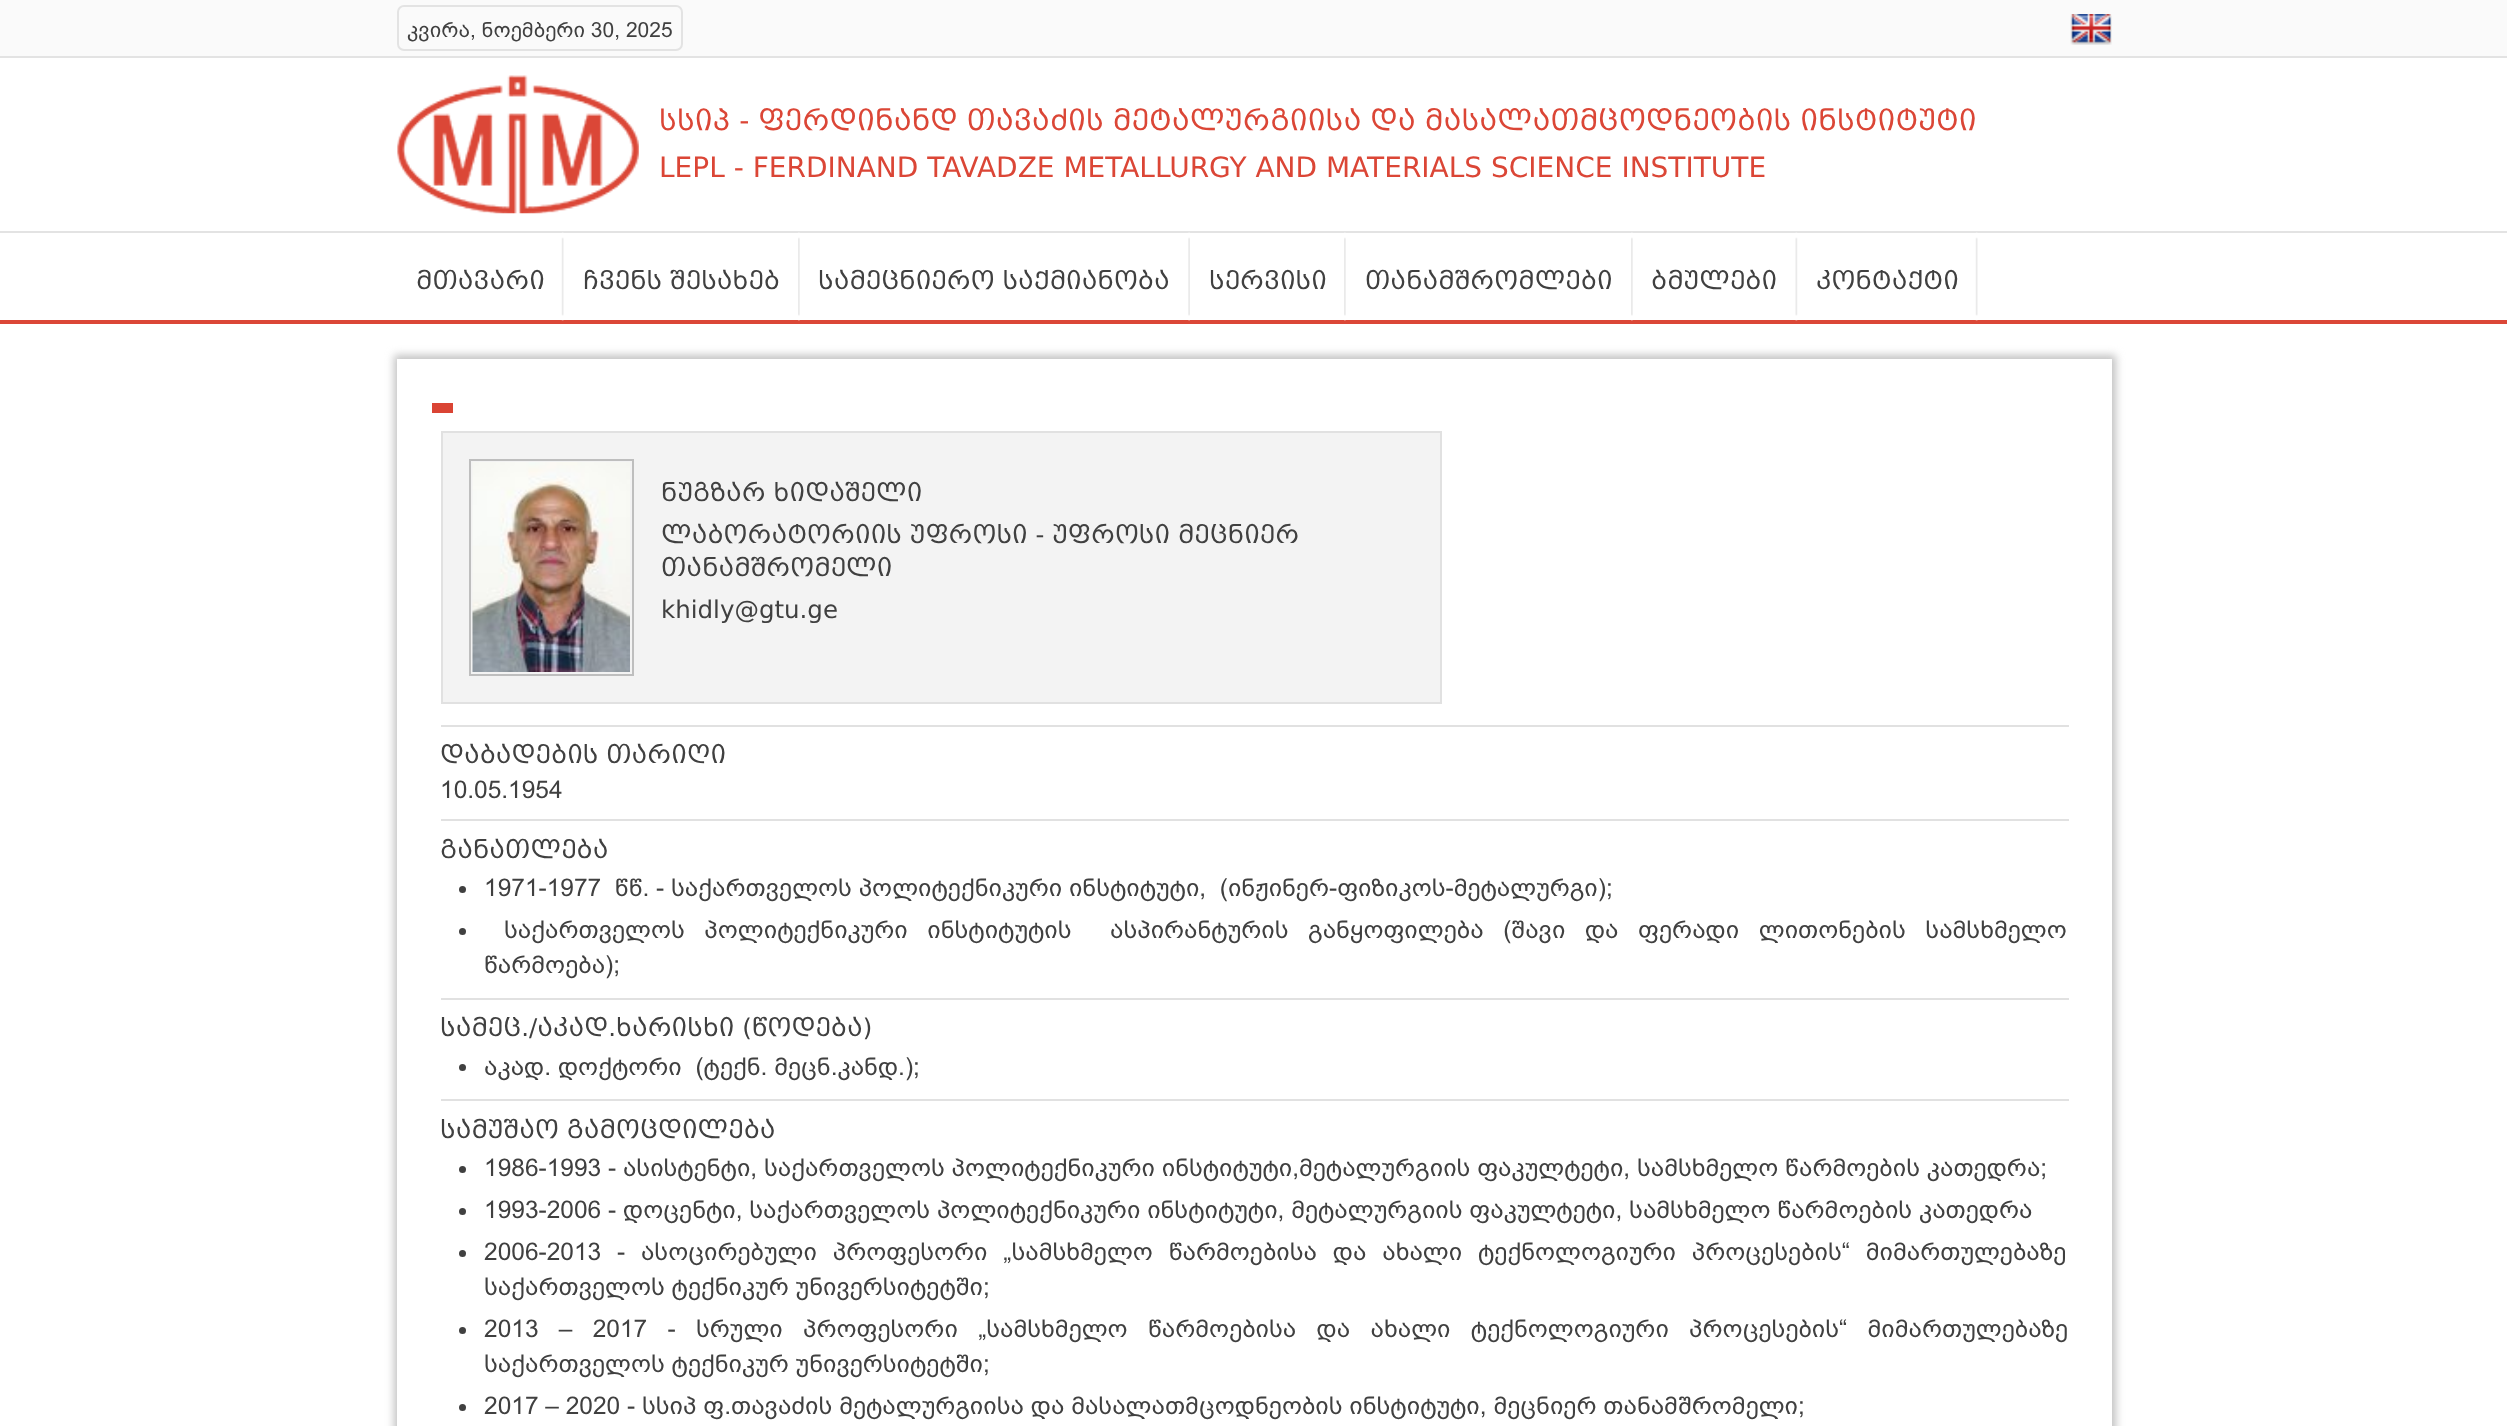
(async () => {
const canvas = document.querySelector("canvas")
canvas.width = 2507
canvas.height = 1426
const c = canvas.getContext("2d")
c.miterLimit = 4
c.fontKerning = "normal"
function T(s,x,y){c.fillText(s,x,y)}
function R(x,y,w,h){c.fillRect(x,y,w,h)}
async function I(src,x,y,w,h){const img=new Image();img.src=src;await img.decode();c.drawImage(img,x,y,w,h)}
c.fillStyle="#fff"
R(0,0,2507,1426)
c.fillStyle="#fafafa"
R(0,0,2507,56)
c.fillStyle="#e3e3e3"
R(0,56,2507,2)
c.beginPath()
c.roundRect(398,6,284,44,6)
c.strokeStyle="#e3e3e3"
c.lineWidth=2
c.stroke()
c.font="21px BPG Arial"
c.fillStyle="#404040"
T("კვირა, ნოემბერი 30, 2025",407,37)
await I("1.png",2070,14,42,31)
await I("2.png",397,75,242,139)
c.font="28px 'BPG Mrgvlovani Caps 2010'"
c.fillStyle="#db4636"
T("სსიპ - ფერდინანდ თავაძის მეტალურგიისა და მასალათმცოდნეობის ინსტიტუტი",659,130)
T("LEPL - FERDINAND TAVADZE METALLURGY AND MATERIALS SCIENCE INSTITUTE",659,177)
c.fillStyle="#e3e3e3"
R(0,231,2507,2)
c.fillStyle="#db4737"
R(0,320,2507,4)
await I("3.png",561,232,3,89)
c.font="24.5px 'BPG Mrgvlovani Caps 2010'"
c.fillStyle="#404040"
T("მთავარი",416,289)
await I("4.png",798,232,2,89)
T("ჩვენს შესახებ",583,289)
await I("5.png",1188,232,2,89)
T("სამეცნიერო საქმიანობა",818,289)
await I("4.png",1344,232,2,89)
T("სერვისი",1209,289)
await I("4.png",1631,232,2,89)
T("თანამშრომლები",1365,289)
await I("6.png",1795,232,3,89)
T("ბმულები",1651,289)
await I("3.png",1975,232,3,89)
T("კონტაქტი",1816,289)
c.fillStyle="#c2c2c2"
c.filter="blur(4.5px)"
c.beginPath()
c.rect(394,355,1722,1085)
c.fill()
c.filter="none"
c.fillStyle="#fff"
R(397,359,1715,1067)
c.fillStyle="#da4434"
R(432,403,21,10)
c.fillStyle="#f3f3f3"
c.beginPath()
c.rect(442,432,999,271)
c.fill()
c.strokeStyle="#e1e1e1"
c.stroke()
c.strokeStyle="#bebebe"
c.strokeRect(470,460,163,215)
await I("7.png",472,462,158,210)
c.fillStyle="#404040"
T("ნუგზარ ხიდაშელი",661,501)
T("ლაბორატორიის უფროსი - უფროსი მეცნიერ",661,543)
T("თანამშრომელი",661,576)
T("khidly@gtu.ge",661,618)
c.fillStyle="#e1e1e1"
R(441,725,1628,2)
c.fillStyle="#404040"
T("დაბადების თარიღი",440,763)
c.font="24.5px BPG Arial"
T("10.05.1954",440,798)
c.fillStyle="#e1e1e1"
R(441,819,1628,2)
c.font="24.5px 'BPG Mrgvlovani Caps 2010'"
c.fillStyle="#404040"
T("განათლება",440,858)
c.beginPath()
c.arc(462.5,889.5,3.5,0,7)
c.fill()
c.font="24.5px BPG Arial"
T("1971-1977  წწ. - საქართველოს პოლიტექნიკური ინსტიტუტი,  (ინჟინერ-ფიზიკოს-მეტალურგი);",484,896)
c.beginPath()
c.arc(462.5,931.5,3.5,0,7)
c.fill()
c.wordSpacing="12.75px"
T("საქართველოს პოლიტექნიკური ინსტიტუტის",504,938)
T("ასპირანტურის განყოფილება (შავი და ფერადი ლითონების სამსხმელო",1110,938)
c.wordSpacing="0px"
T("წარმოება);",484,973)
c.fillStyle="#e1e1e1"
R(441,998,1628,2)
c.font="24.5px 'BPG Mrgvlovani Caps 2010'"
c.fillStyle="#404040"
T("სამეც./აკად.ხარისხი (წოდება)",440,1036)
c.beginPath()
c.arc(462.5,1067.5,3.5,0,7)
c.fill()
c.font="24.5px BPG Arial"
T("აკად. დოქტორი  (ტექნ. მეცნ.კანდ.);",484,1075)
c.fillStyle="#e1e1e1"
R(441,1099,1628,2)
c.font="24.5px 'BPG Mrgvlovani Caps 2010'"
c.fillStyle="#404040"
T("სამუშაო გამოცდილება",440,1138)
c.beginPath()
c.arc(462.5,1169.5,3.5,0,7)
c.fill()
c.font="24.5px BPG Arial"
T("1986-1993 - ასისტენტი, საქართველოს პოლიტექნიკური ინსტიტუტი,მეტალურგიის ფაკულტეტი, სამსხმელო წარმოების კათედრა;",484,1176)
c.beginPath()
c.arc(462.5,1211.5,3.5,0,7)
c.fill()
T("1993-2006 - დოცენტი, საქართველოს პოლიტექნიკური ინსტიტუტი, მეტალურგიის ფაკულტეტი, სამსხმელო წარმოების კათედრა",484,1218)
c.beginPath()
c.arc(462.5,1253.5,3.5,0,7)
c.fill()
c.wordSpacing="9px"
T("2006-2013 - ასოცირებული პროფესორი „სამსხმელო წარმოებისა და ახალი ტექნოლოგიური პროცესების“ მიმართულებაზე",484,1260)
c.wordSpacing="0px"
T("საქართველოს ტექნიკურ უნივერსიტეტში;",484,1295)
c.beginPath()
c.arc(462.5,1330.5,3.5,0,7)
c.fill()
c.wordSpacing="13.5px"
T("2013 – 2017 - სრული პროფესორი „სამსხმელო წარმოებისა და ახალი ტექნოლოგიური პროცესების“ მიმართულებაზე",484,1337)
c.wordSpacing="0px"
T("საქართველოს ტექნიკურ უნივერსიტეტში;",484,1372)
c.beginPath()
c.arc(462.5,1407.5,3.5,0,7)
c.fill()
T("2017 – 2020 - სსიპ ფ.თავაძის მეტალურგიისა და მასალათმცოდნეობის ინსტიტუტი, მეცნიერ თანამშრომელი;",484,1414)
})()
